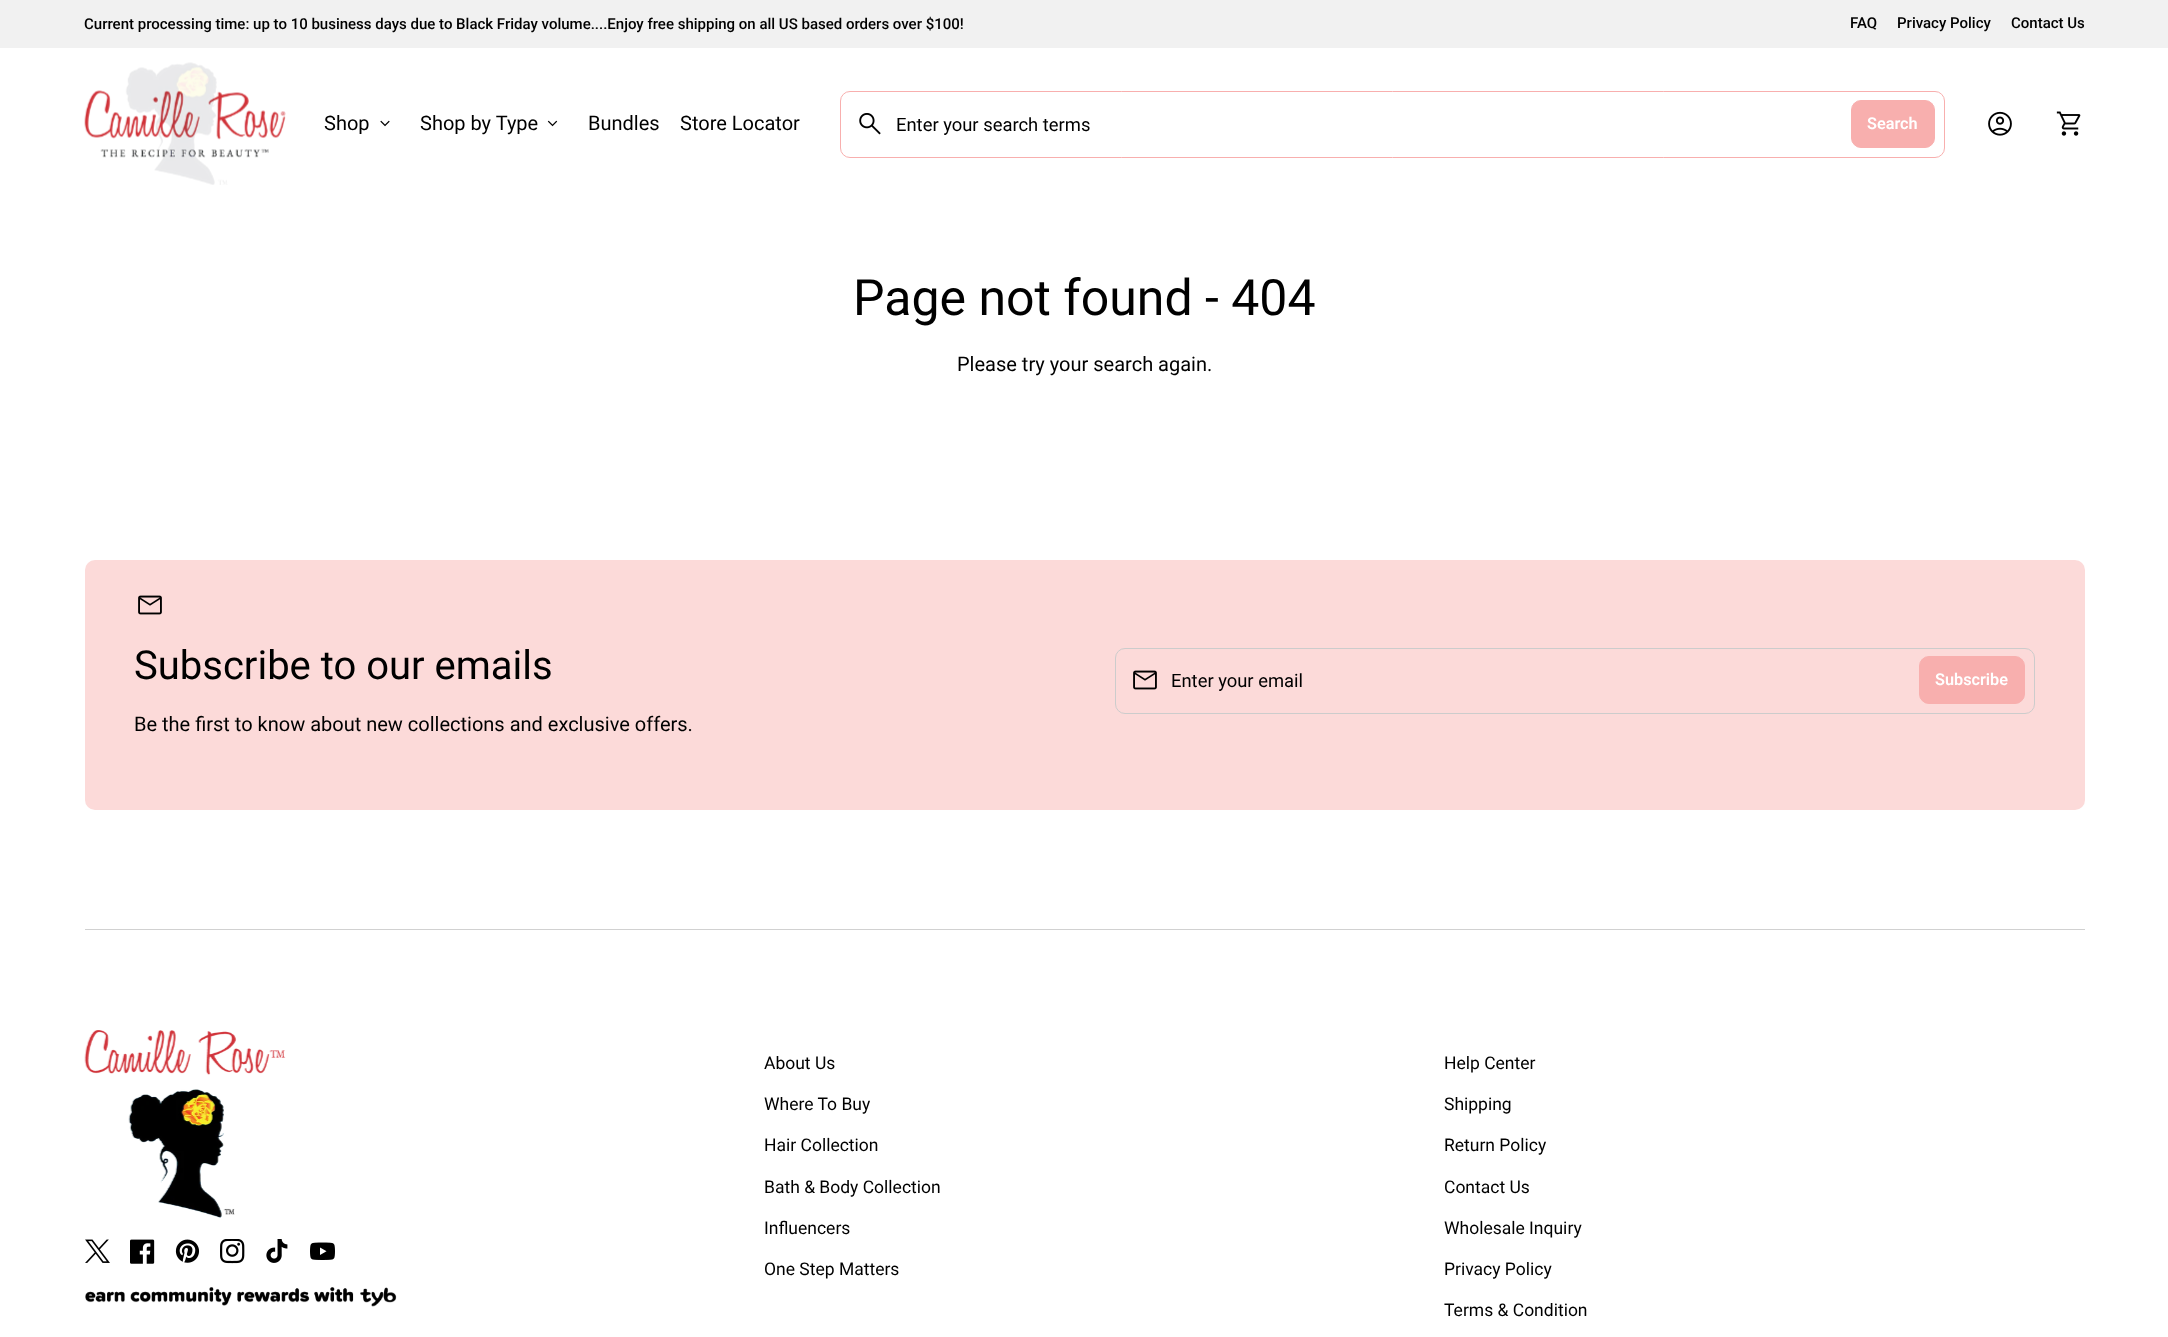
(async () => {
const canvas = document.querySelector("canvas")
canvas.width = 2168
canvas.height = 1337
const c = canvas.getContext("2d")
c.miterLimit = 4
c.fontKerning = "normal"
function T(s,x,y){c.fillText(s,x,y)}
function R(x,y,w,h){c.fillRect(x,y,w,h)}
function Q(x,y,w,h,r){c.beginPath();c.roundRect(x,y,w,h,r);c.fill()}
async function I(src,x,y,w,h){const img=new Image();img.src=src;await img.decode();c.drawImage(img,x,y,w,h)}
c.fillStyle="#fff"
R(0,0,2168,1337)
c.fillStyle="#f1f1f1"
R(0,0,2168,48)
c.font="500 15px Roboto"
c.fillStyle="#000"
T("Current processing time: up to 10 business days due to Black Friday volume....Enjoy free shipping on all US based orders over $100!",84,29)
T("FAQ",1850,28)
T("Privacy Policy",1897,28)
T("Contact Us",2011,28)
await I("1.png",84,62,202,123)
c.font="20px Roboto"
T("Shop",324,130)
await I("2.png",380,120,10,7)
T("Shop by Type",420,130)
await I("3.png",547,120,11,7)
T("Bundles",588,130)
T("Store Locator",680,130)
c.beginPath()
c.roundRect(840.5,91.5,1104,66,9.5)
c.strokeStyle="#f8afae"
c.stroke()
await I("4.png",859,113,22,22)
c.font="18.4px Roboto"
T("Enter your search terms",896,131)
c.fillStyle="#f8afae"
c.beginPath()
c.roundRect(1851.5,100.5,83,47,9.5)
c.fill()
c.stroke()
c.font="600 16.25px Roboto"
c.fillStyle="#fff"
T("Search",1867,129)
await I("5.png",1988,111,24,25)
await I("6.png",2056,111,25,25)
c.font="50px Roboto"
c.fillStyle="#000"
T("Page not found - 404",853,315)
c.font="20px Roboto"
T("Please try your search again.",957,371)
c.fillStyle="#fcdad9"
Q(85,560,2000,250,10)
await I("7.png",138,595,24,20)
c.font="40px Roboto"
c.fillStyle="#000"
T("Subscribe to our emails",134,679)
c.font="20px Roboto"
T("Be the first to know about new collections and exclusive offers.",134,731)
c.beginPath()
c.roundRect(1115.5,648.5,919,65,9.5)
c.strokeStyle="#ccc"
c.stroke()
await I("7.png",1133,670,24,20)
c.font="18.4px Roboto"
T("Enter your email",1171,687)
c.fillStyle="#f8afae"
c.beginPath()
c.roundRect(1919.5,656.5,105,47,9.5)
c.fill()
c.strokeStyle="#f8afae"
c.stroke()
c.font="600 16.25px Roboto"
c.fillStyle="#fff"
T("Subscribe",1935,685)
c.fillStyle="#d1d1d1"
R(85,929,2000,1)
await I("8.png",84,1030,202,188)
await I("9.png",85,1239,25,24)
await I("10.png",130,1239,25,25)
await I("11.png",175,1239,24,24)
await I("12.png",220,1239,25,25)
await I("13.png",266,1239,22,24)
await I("14.png",310,1242,25,18)
await I("15.png",85,1287,312,20)
c.font="17.5px Roboto"
c.fillStyle="#000"
T("About Us",764,1069)
T("Where To Buy",764,1110)
T("Hair Collection",764,1151)
T("Bath & Body Collection",764,1193)
T("Influencers",764,1234)
T("One Step Matters",764,1275)
T("Help Center",1444,1069)
T("Shipping",1444,1110)
T("Return Policy",1444,1151)
T("Contact Us",1444,1193)
T("Wholesale Inquiry",1444,1234)
T("Privacy Policy",1444,1275)
T("Terms & Condition",1444,1316)
})()
